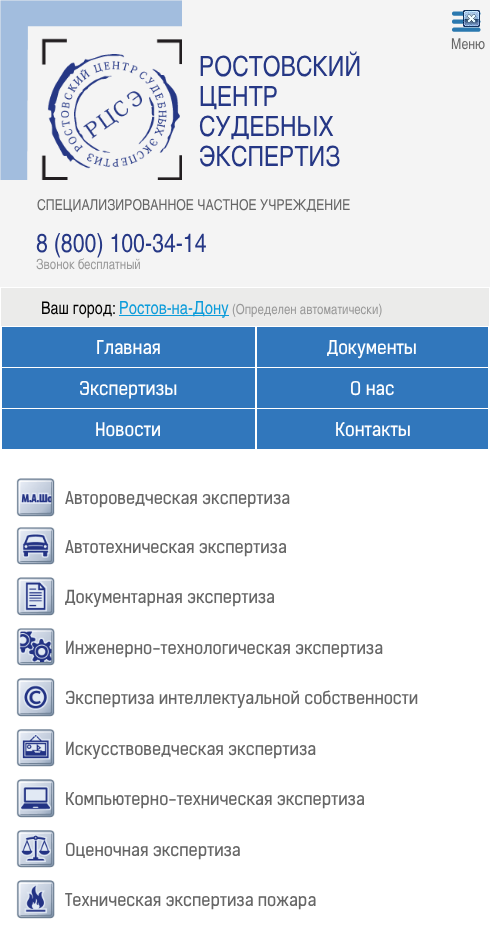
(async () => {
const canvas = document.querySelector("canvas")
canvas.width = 490
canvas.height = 927
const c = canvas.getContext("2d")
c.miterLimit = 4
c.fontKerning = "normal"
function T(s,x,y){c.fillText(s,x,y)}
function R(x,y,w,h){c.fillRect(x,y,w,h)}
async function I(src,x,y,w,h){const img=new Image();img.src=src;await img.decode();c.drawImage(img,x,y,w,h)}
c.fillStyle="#fff"
R(0,0,490,927)
c.fillStyle="#f4f4f4"
R(0,0,490,287)
await I("2.png",452,11,29,21)
await I("1.png",463,10,17,17)
c.font="15px TeX Gyre Heros Cn"
c.fillStyle="#666"
T("Меню",451,49)
await I("3.png",0,0,182,180)
c.font="28px TeX Gyre Heros Cn"
c.fillStyle="#253785"
T("РОСТОВСКИЙ",199,76)
T("ЦЕНТР",199,106)
T("СУДЕБНЫХ",199,136)
T("ЭКСПЕРТИЗ",199,166)
c.font="15px TeX Gyre Heros Cn"
c.fillStyle="#666"
T("СПЕЦИАЛИЗИРОВАННОЕ ЧАСТНОЕ УЧРЕЖДЕНИЕ",37,210)
c.font="26px TeX Gyre Heros Cn"
c.fillStyle="#253785"
T("8 (800) 100-34-14",36,252)
c.font="14px TeX Gyre Heros Cn"
c.fillStyle="#999"
T("Звонок бесплатный",36,269)
c.fillStyle="#ebebea"
R(1,288,488,38)
c.font="17.5px TeX Gyre Heros Cn"
c.fillStyle="#000"
T("Ваш город:",41,314)
c.fillStyle="#0c9cda"
R(119,315,110,1)
c.font="18px TeX Gyre Heros Cn"
T("Ростов-на-Дону",119,314)
c.font="14px TeX Gyre Heros Cn"
c.fillStyle="#999"
T("(Определен автоматически)",232,314)
c.fillStyle="#3177bc"
R(2,327,253,40)
c.font="18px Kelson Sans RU"
c.fillStyle="#fff"
T("Главная",96,354)
c.fillStyle="#3177bc"
R(2,368,253,40)
c.fillStyle="#fff"
T("Экспертизы",79,395)
c.fillStyle="#3177bc"
R(2,409,253,40)
c.fillStyle="#fff"
T("Новости",95,436)
c.fillStyle="#3177bc"
R(257,327,231,40)
c.fillStyle="#fff"
T("Документы",327,354)
c.fillStyle="#3177bc"
R(257,368,231,40)
c.fillStyle="#fff"
T("О нас",350,395)
c.fillStyle="#3177bc"
R(257,409,231,40)
c.fillStyle="#fff"
T("Контакты",335,436)
await I("4.png",16,478,39,39)
c.font="17px Kelson Sans RU"
c.fillStyle="#666"
T("Автороведческая экспертиза",65,504)
await I("5.png",16,527,39,38)
T("Автотехническая экспертиза",65,553)
await I("6.png",16,577,39,39)
T("Документарная экспертиза",65,603)
await I("7.png",16,628,39,38)
T("Инженерно-технологическая экспертиза",65,654)
await I("8.png",16,678,39,39)
T("Экспертиза интеллектуальной собственности",65,704)
await I("9.png",16,729,39,38)
T("Искусствоведческая экспертиза",65,755)
await I("10.png",16,779,39,39)
T("Компьютерно-техническая экспертиза",65,805)
await I("11.png",16,830,39,38)
T("Оценочная экспертиза",65,856)
await I("12.png",16,880,39,39)
T("Техническая экспертиза пожара",65,906)
})()
